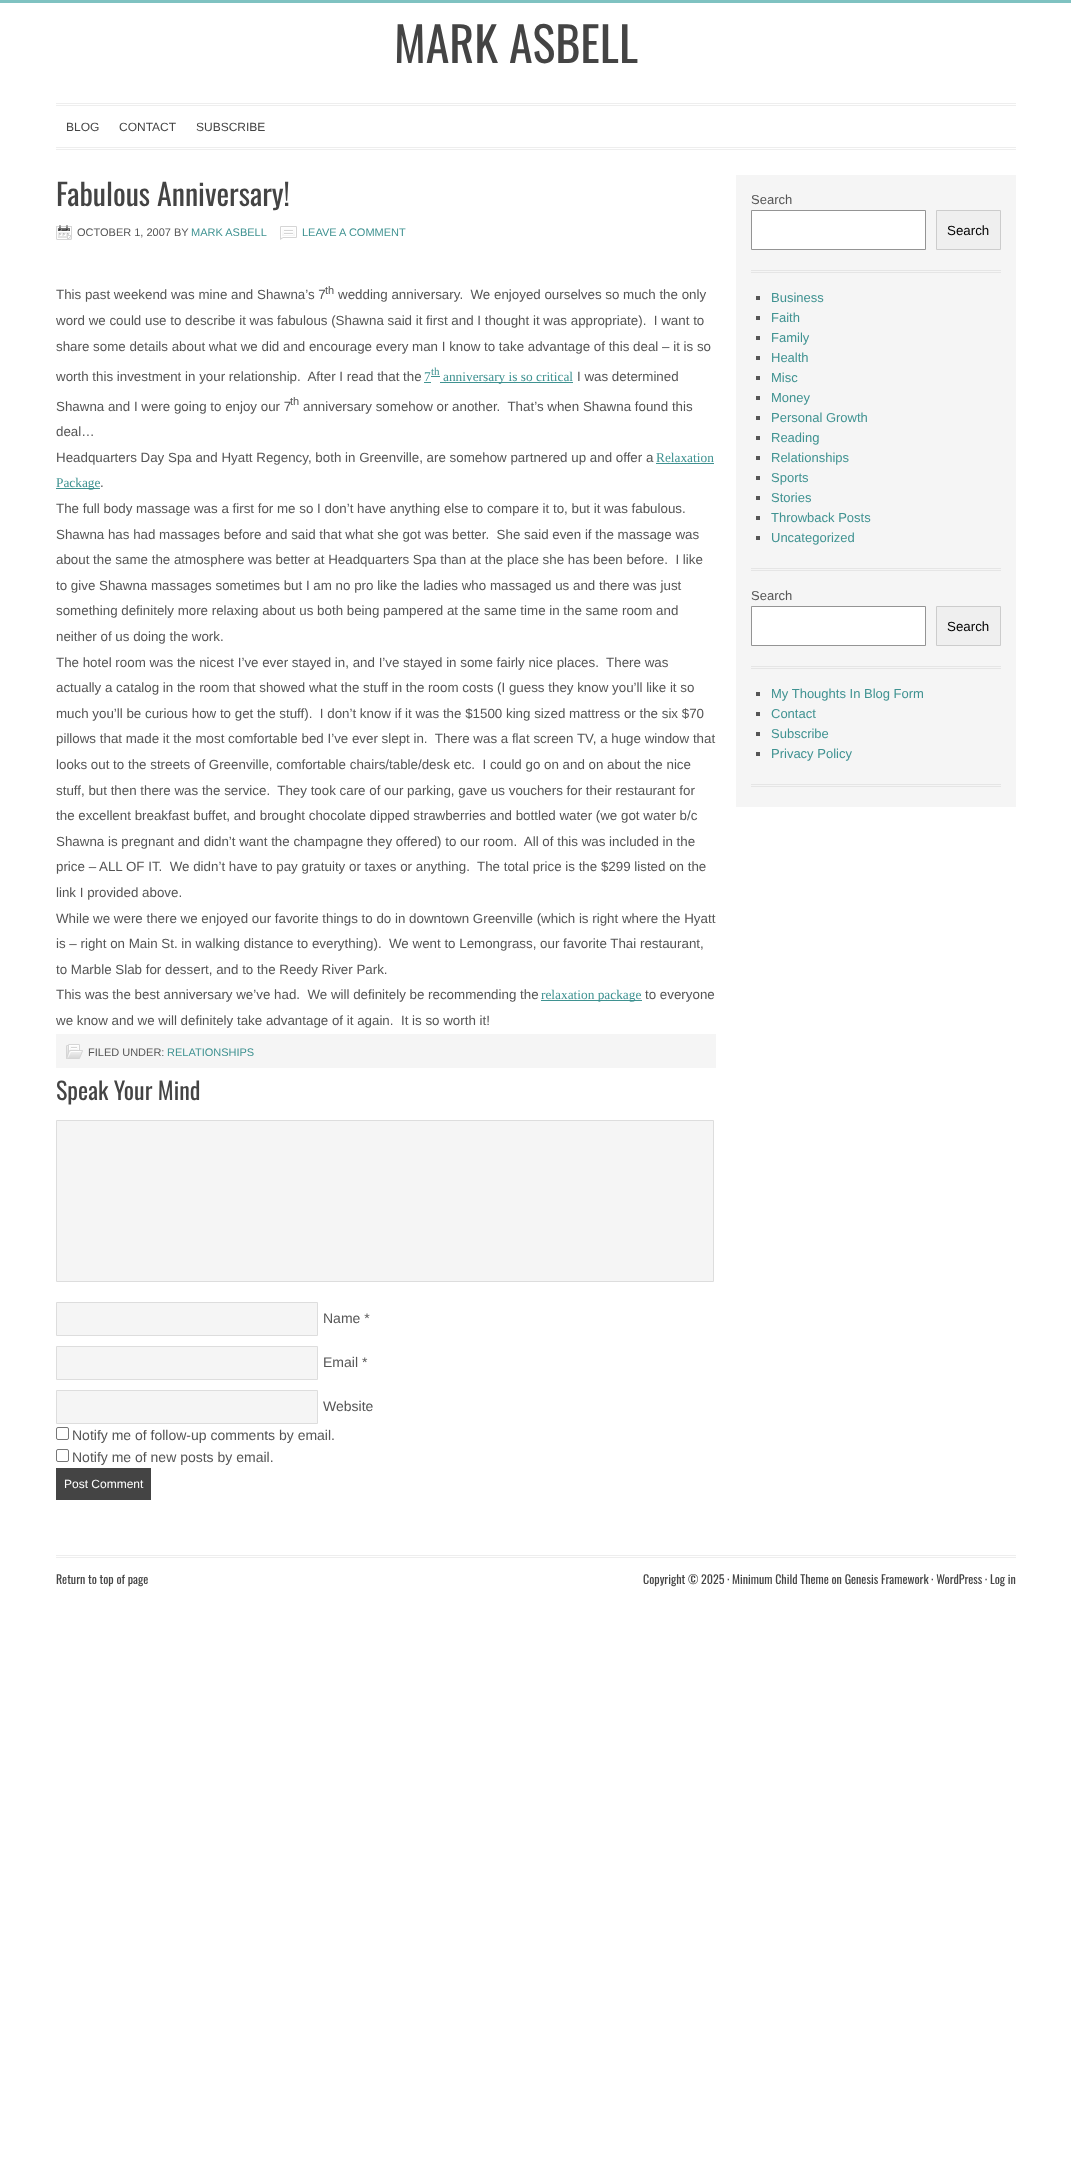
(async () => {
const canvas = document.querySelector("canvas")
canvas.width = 1071
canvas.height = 2183
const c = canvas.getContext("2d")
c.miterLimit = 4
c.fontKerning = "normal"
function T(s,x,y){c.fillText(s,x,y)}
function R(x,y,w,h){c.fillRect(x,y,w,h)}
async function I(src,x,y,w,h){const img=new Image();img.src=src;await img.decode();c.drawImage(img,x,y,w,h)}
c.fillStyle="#fff"
R(0,0,1071,2183)
c.fillStyle="#7fc2c1"
R(0,0,1071,3)
c.fillStyle="#eee"
R(56,103,960,1)
R(56,105,960,1)
c.font="48px Oswald"
c.fillStyle="#444"
T("MARK ASBELL",394,63)
c.fillStyle="#eee"
R(56,147,960,1)
R(56,149,960,1)
c.font="12px Liberation Sans"
c.fillStyle="#444"
T("BLOG",66,131)
T("CONTACT",119,131)
T("SUBSCRIBE",196,131)
c.font="30px Oswald"
T("Fabulous Anniversary!",56,206)
await I("1.png",56,225,16,15)
c.font="11px Liberation Sans"
c.fillStyle="#555"
T("OCTOBER 1, 2007 BY",77,236)
c.fillStyle="#3f9291"
T("MARK ASBELL",191,236)
await I("2.png",280,226,17,14)
T("LEAVE A COMMENT",302,236)
c.font="13.35px Liberation Sans"
c.fillStyle="#555"
T("This past weekend was mine and Shawna’s 7",56,299)
c.font="11px Liberation Sans"
T("th",325,294)
c.font="13.35px Liberation Sans"
T("wedding anniversary.  We enjoyed ourselves so much the only",338,299)
T("word we could use to describe it was fabulous (Shawna said it first and I thought it was appropriate).  I want to",56,325)
T("share some details about what we did and encourage every man I know to take advantage of this deal – it is so",56,351)
T("worth this investment in your relationship.  After I read that the",56,381)
c.font="13.35px Liberation Serif"
c.fillStyle="#3f9291"
T("7",424,381)
R(424,382,7,1)
R(431,376,9,1)
c.font="11px Liberation Serif"
T("th",431,375)
R(440,382,133,1)
c.font="13.35px Liberation Serif"
T("anniversary is so critical",443,381)
c.font="13.35px Liberation Sans"
c.fillStyle="#555"
T("I was determined",577,381)
T("Shawna and I were going to enjoy our 7",56,411)
c.font="11px Liberation Sans"
T("th",290,405)
c.font="13.35px Liberation Sans"
T("anniversary somehow or another.  That’s when Shawna found this",303,411)
T("deal…",56,436)
T("Headquarters Day Spa and Hyatt Regency, both in Greenville, are somehow partnered up and offer a",56,462)
c.font="13.35px Liberation Serif"
c.fillStyle="#3f9291"
T("Relaxation",656,462)
R(656,463,58,1)
R(56,488,44,1)
T("Package",56,487)
c.font="13.35px Liberation Sans"
c.fillStyle="#555"
T(".",100,487)
T("The full body massage was a first for me so I don’t have anything else to compare it to, but it was fabulous.",56,513)
T("Shawna has had massages before and said that what she got was better.  She said even if the massage was",56,539)
T("about the same the atmosphere was better at Headquarters Spa than at the place she has been before.  I like",56,564)
T("to give Shawna massages sometimes but I am no pro like the ladies who massaged us and there was just",56,590)
T("something definitely more relaxing about us both being pampered at the same time in the same room and",56,615)
T("neither of us doing the work.",56,641)
T("The hotel room was the nicest I’ve ever stayed in, and I’ve stayed in some fairly nice places.  There was",56,667)
T("actually a catalog in the room that showed what the stuff in the room costs (I guess they know you’ll like it so",56,692)
T("much you’ll be curious how to get the stuff).  I don’t know if it was the $1500 king sized mattress or the six $70",56,718)
T("pillows that made it the most comfortable bed I’ve ever slept in.  There was a flat screen TV, a huge window that",56,743)
T("looks out to the streets of Greenville, comfortable chairs/table/desk etc.  I could go on and on about the nice",56,769)
T("stuff, but then there was the service.  They took care of our parking, gave us vouchers for their restaurant for",56,795)
T("the excellent breakfast buffet, and brought chocolate dipped strawberries and bottled water (we got water b/c",56,820)
T("Shawna is pregnant and didn’t want the champagne they offered) to our room.  All of this was included in the",56,846)
T("price – ALL OF IT.  We didn’t have to pay gratuity or taxes or anything.  The total price is the $299 listed on the",56,871)
T("link I provided above.",56,897)
T("While we were there we enjoyed our favorite things to do in downtown Greenville (which is right where the Hyatt",56,923)
T("is – right on Main St. in walking distance to everything).  We went to Lemongrass, our favorite Thai restaurant,",56,948)
T("to Marble Slab for dessert, and to the Reedy River Park.",56,974)
T("This was the best anniversary we’ve had.  We will definitely be recommending the",56,999)
c.fillStyle="#3f9291"
R(541,1000,101,1)
c.font="13.35px Liberation Serif"
T("relaxation package",541,999)
c.font="13.35px Liberation Sans"
c.fillStyle="#555"
T("to everyone",645,999)
T("we know and we will definitely take advantage of it again.  It is so worth it!",56,1025)
c.fillStyle="#f5f5f5"
R(56,1034,660,34)
await I("3.png",66,1044,17,15)
c.font="11px Liberation Sans"
c.fillStyle="#555"
T("FILED UNDER:",88,1056)
c.fillStyle="#3f9291"
T("RELATIONSHIPS",167,1056)
c.font="24px Oswald"
c.fillStyle="#444"
T("Speak Your Mind",56,1100)
c.fillStyle="#f5f5f5"
c.beginPath()
c.rect(56.5,1120.5,657,161)
c.fill()
c.strokeStyle="#ddd"
c.stroke()
c.beginPath()
c.rect(56.5,1302.5,261,33)
c.fill()
c.stroke()
c.font="14px Liberation Sans"
c.fillStyle="#555"
T("Name *",323,1323)
c.fillStyle="#f5f5f5"
c.beginPath()
c.rect(56.5,1346.5,261,33)
c.fill()
c.stroke()
c.fillStyle="#555"
T("Email *",323,1367)
c.fillStyle="#f5f5f5"
c.beginPath()
c.rect(56.5,1390.5,261,33)
c.fill()
c.stroke()
c.fillStyle="#555"
T("Website",323,1411)
c.beginPath()
c.roundRect(56.5,1427.5,12,12,1.5)
c.strokeStyle="#767676"
c.stroke()
T("Notify me of follow-up comments by email.",72,1440)
c.beginPath()
c.roundRect(56.5,1449.5,12,12,1.5)
c.stroke()
T("Notify me of new posts by email.",72,1462)
c.fillStyle="#444"
R(56,1468,95,32)
c.font="12px Liberation Sans"
c.fillStyle="#fff"
T("Post Comment",64,1488)
c.fillStyle="#f5f5f5"
R(736,175,280,632)
c.fillStyle="#e5e5e5"
R(751,270,250,1)
R(751,272,250,1)
c.font="13px Liberation Sans"
c.fillStyle="#555"
T("Search",751,204)
c.fillStyle="#fff"
c.beginPath()
c.rect(751.5,210.5,174,39)
c.fill()
c.strokeStyle="#949494"
c.stroke()
c.fillStyle="#efefef"
c.beginPath()
c.rect(936.5,210.5,64,39)
c.fill()
c.strokeStyle="#ccc"
c.stroke()
c.font="13.35px Liberation Sans"
c.fillStyle="#000"
T("Search",947,235)
c.fillStyle="#e5e5e5"
R(751,568,250,1)
R(751,570,250,1)
c.fillStyle="#555"
R(756,296,4,4)
c.font="13px Liberation Sans"
c.fillStyle="#3f9291"
T("Business",771,302)
c.fillStyle="#555"
R(756,316,4,4)
c.fillStyle="#3f9291"
T("Faith",771,322)
c.fillStyle="#555"
R(756,336,4,4)
c.fillStyle="#3f9291"
T("Family",771,342)
c.fillStyle="#555"
R(756,356,4,4)
c.fillStyle="#3f9291"
T("Health",771,362)
c.fillStyle="#555"
R(756,376,4,4)
c.fillStyle="#3f9291"
T("Misc",771,382)
c.fillStyle="#555"
R(756,396,4,4)
c.fillStyle="#3f9291"
T("Money",771,402)
c.fillStyle="#555"
R(756,416,4,4)
c.fillStyle="#3f9291"
T("Personal Growth",771,422)
c.fillStyle="#555"
R(756,436,4,4)
c.fillStyle="#3f9291"
T("Reading",771,442)
c.fillStyle="#555"
R(756,456,4,4)
c.fillStyle="#3f9291"
T("Relationships",771,462)
c.fillStyle="#555"
R(756,476,4,4)
c.fillStyle="#3f9291"
T("Sports",771,482)
c.fillStyle="#555"
R(756,496,4,4)
c.fillStyle="#3f9291"
T("Stories",771,502)
c.fillStyle="#555"
R(756,516,4,4)
c.fillStyle="#3f9291"
T("Throwback Posts",771,522)
c.fillStyle="#555"
R(756,536,4,4)
c.fillStyle="#3f9291"
T("Uncategorized",771,542)
c.fillStyle="#e5e5e5"
R(751,666,250,1)
R(751,668,250,1)
c.fillStyle="#555"
T("Search",751,600)
c.fillStyle="#fff"
c.beginPath()
c.rect(751.5,606.5,174,39)
c.fill()
c.strokeStyle="#949494"
c.stroke()
c.fillStyle="#efefef"
c.beginPath()
c.rect(936.5,606.5,64,39)
c.fill()
c.strokeStyle="#ccc"
c.stroke()
c.font="13.35px Liberation Sans"
c.fillStyle="#000"
T("Search",947,631)
c.fillStyle="#e5e5e5"
R(751,784,250,1)
R(751,786,250,1)
c.fillStyle="#555"
R(756,692,4,4)
c.font="13px Liberation Sans"
c.fillStyle="#3f9291"
T("My Thoughts In Blog Form",771,698)
c.fillStyle="#555"
R(756,712,4,4)
c.fillStyle="#3f9291"
T("Contact",771,718)
c.fillStyle="#555"
R(756,732,4,4)
c.fillStyle="#3f9291"
T("Subscribe",771,738)
c.fillStyle="#555"
R(756,752,4,4)
c.fillStyle="#3f9291"
T("Privacy Policy",771,758)
c.fillStyle="#eee"
R(56,1555,960,1)
R(56,1557,960,1)
c.font="12px Oswald"
c.fillStyle="#444"
T("Return to top of page",56,1584)
T("Copyright © 2025 · Minimum Child Theme on Genesis Framework · WordPress · Log in",643,1584)
})()
